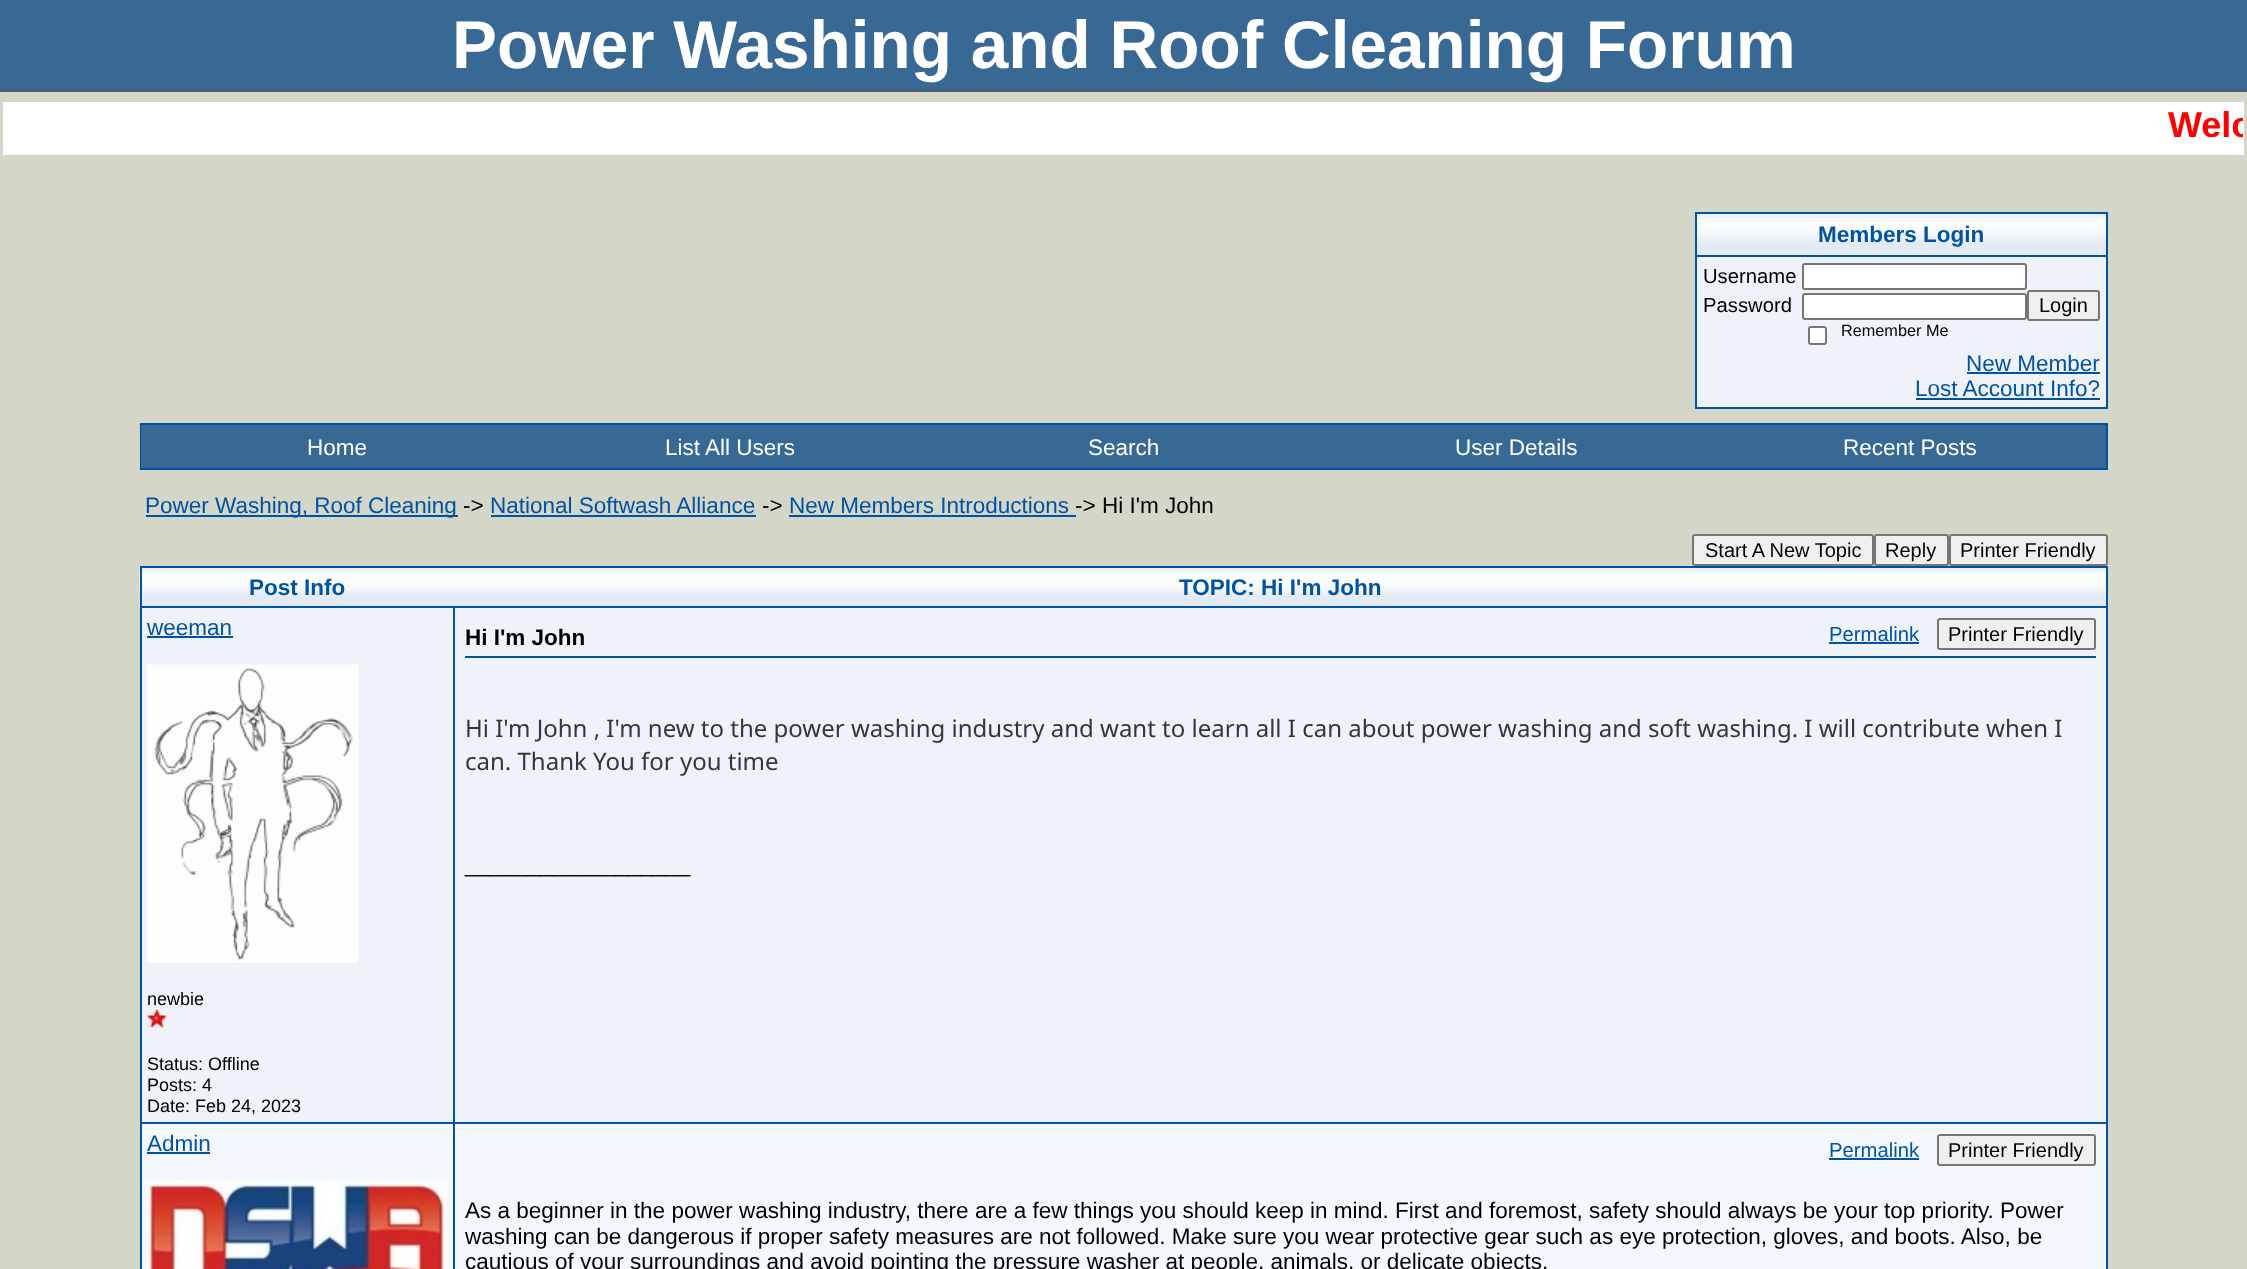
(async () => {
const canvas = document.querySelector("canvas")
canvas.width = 2247
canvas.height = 1269
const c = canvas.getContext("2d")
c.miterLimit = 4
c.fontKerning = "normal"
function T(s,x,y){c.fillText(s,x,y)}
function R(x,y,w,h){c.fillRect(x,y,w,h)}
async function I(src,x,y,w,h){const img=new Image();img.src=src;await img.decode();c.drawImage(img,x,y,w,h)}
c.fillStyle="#d4d6c7"
R(0,0,2247,1269)
c.fillStyle="#386994"
R(0,0,2247,90)
c.fillStyle="#525e6e"
R(0,90,2247,2)
c.font="bold 67.5px Liberation Sans"
c.fillStyle="#fff"
T("Power Washing and Roof Cleaning Forum",452,68)
R(3,102,2241,53)
c.save()
c.beginPath()
c.rect(5,104,2238,49)
c.clip()
c.font="bold 36px Liberation Sans"
c.fillStyle="#f00"
T("Welc",2168,137)
c.restore()
c.fillStyle="#0053a2"
R(1695,212,413,2)
R(2106,212,2,196)
R(1695,407,413,2)
R(1695,212,2,196)
await I("1.png",1697,214,409,41)
R(1695,255,413,2)
c.font="bold 22.5px Liberation Sans"
T("Members Login",1818,242)
c.fillStyle="#eff2f9"
R(1697,257,409,150)
c.font="20.25px Liberation Sans"
c.fillStyle="#000"
T("Username",1703,283)
c.fillStyle="#fff"
c.beginPath()
c.roundRect(1803,264,223,25,2)
c.fill()
c.strokeStyle="#767676"
c.lineWidth=2
c.stroke()
c.fillStyle="#000"
T("Password",1703,312)
c.fillStyle="#fff"
c.beginPath()
c.roundRect(1803,294,223,25,2)
c.fill()
c.stroke()
c.fillStyle="#efefef"
c.beginPath()
c.roundRect(2028,291,71,29,2)
c.fill()
c.stroke()
c.font="20px Liberation Sans"
c.fillStyle="#000"
T("Login",2039,312)
c.fillStyle="#fff"
c.beginPath()
c.roundRect(1809,327,17,17,2)
c.fill()
c.stroke()
c.font="16.25px Liberation Sans"
c.fillStyle="#000"
T("Remember Me",1841,336)
c.font="22.5px Liberation Sans"
c.fillStyle="#0053a2"
T("New Member",1966,371)
R(1967,372,133,2)
T("Lost Account Info?",1915,396)
R(1916,398,184,2)
c.fillStyle="#bfd5a1"
R(139,423,1,47)
c.fillStyle="#0053a2"
R(140,423,1968,47)
c.fillStyle="#386994"
R(141,425,1965,43)
c.fillStyle="#fff"
T("Home",307,455)
T("List All Users",665,455)
T("Search",1088,455)
T("User Details",1455,455)
T("Recent Posts",1843,455)
c.fillStyle="#0053a2"
R(146,515,312,2)
T("Power Washing, Roof Cleaning",145,513)
c.fillStyle="#000"
T("->",463,513)
c.fillStyle="#0053a2"
T("National Softwash Alliance",490,513)
R(491,515,265,2)
c.fillStyle="#000"
T("->",762,513)
c.fillStyle="#0053a2"
T("New Members Introductions",789,513)
R(789,515,287,2)
c.fillStyle="#000"
T("-> Hi I'm John",1075,513)
c.fillStyle="#efefef"
c.beginPath()
c.roundRect(1693,535,180,30,2)
c.fill()
c.stroke()
c.font="20px Liberation Sans"
c.fillStyle="#000"
T("Start A New Topic",1705,557)
c.fillStyle="#efefef"
c.beginPath()
c.roundRect(1875,535,73,30,2)
c.fill()
c.stroke()
c.fillStyle="#000"
T("Reply",1885,557)
c.fillStyle="#efefef"
c.beginPath()
c.roundRect(1950,535,157,30,2)
c.fill()
c.stroke()
c.fillStyle="#000"
T("Printer Friendly",1960,557)
await I("2.png",139,567,314,41)
c.fillStyle="#0053a2"
R(140,566,1968,2)
R(2106,566,2,703)
R(140,566,2,703)
c.font="bold 22.5px Liberation Sans"
T("Post Info",249,595)
await I("3.png",453,568,1653,38)
T("TOPIC: Hi I'm John",1179,595)
c.fillStyle="#eff2f9"
R(142,608,311,514)
c.fillStyle="#0053a2"
R(453,606,1655,2)
R(453,1122,1655,2)
R(453,1122,2,147)
R(140,1122,315,2)
R(453,606,2,518)
R(140,606,315,2)
c.font="22.5px Liberation Sans"
T("weeman",147,635)
R(147,636,86,2)
await I("4.png",147,664,212,299)
c.font="18px Liberation Sans"
c.fillStyle="#000"
T("newbie",147,1005)
await I("5.png",147,1009,20,19)
T("Status: Offline",147,1070)
T("Posts: 4",147,1091)
T("Date: Feb 24, 2023",147,1112)
c.fillStyle="#eff2f9"
R(455,608,1651,514)
c.font="bold 22.5px Liberation Sans"
c.fillStyle="#000"
T("Hi I'm John",465,645)
c.font="20.25px Liberation Sans"
c.fillStyle="#0053a2"
T("Permalink",1829,641)
R(1829,642,90,2)
c.fillStyle="#efefef"
c.beginPath()
c.roundRect(1938,619,157,30,2)
c.fill()
c.stroke()
c.font="20px Liberation Sans"
c.fillStyle="#000"
T("Printer Friendly",1948,641)
c.fillStyle="#0053a2"
R(465,656,1631,2)
c.font="24px Noto Sans"
c.fillStyle="#343541"
T("Hi I'm John , I'm new to the power washing industry and want to learn all I can about power washing and soft washing. I will contribute when I",465,737)
T("can. Thank You for you time",465,770)
c.font="22.5px Liberation Sans"
c.fillStyle="#000"
T("__________________",465,872)
c.fillStyle="#f4f7fe"
R(142,1124,311,145)
c.fillStyle="#0053a2"
T("Admin",147,1151)
R(147,1152,63,2)
await I("6.png",147,1180,300,89)
c.fillStyle="#f4f7fe"
R(455,1124,1651,145)
c.font="20.25px Liberation Sans"
c.fillStyle="#0053a2"
T("Permalink",1829,1157)
R(1829,1158,90,2)
c.fillStyle="#efefef"
c.beginPath()
c.roundRect(1938,1135,157,30,2)
c.fill()
c.stroke()
c.font="20px Liberation Sans"
c.fillStyle="#000"
T("Printer Friendly",1948,1157)
c.font="22.5px Liberation Sans"
T("As a beginner in the power washing industry, there are a few things you should keep in mind. First and foremost, safety should always be your top priority. Power",465,1218)
T("washing can be dangerous if proper safety measures are not followed. Make sure you wear protective gear such as eye protection, gloves, and boots. Also, be",465,1244)
T("cautious of your surroundings and avoid pointing the pressure washer at people, animals, or delicate objects.",465,1269)
})()
